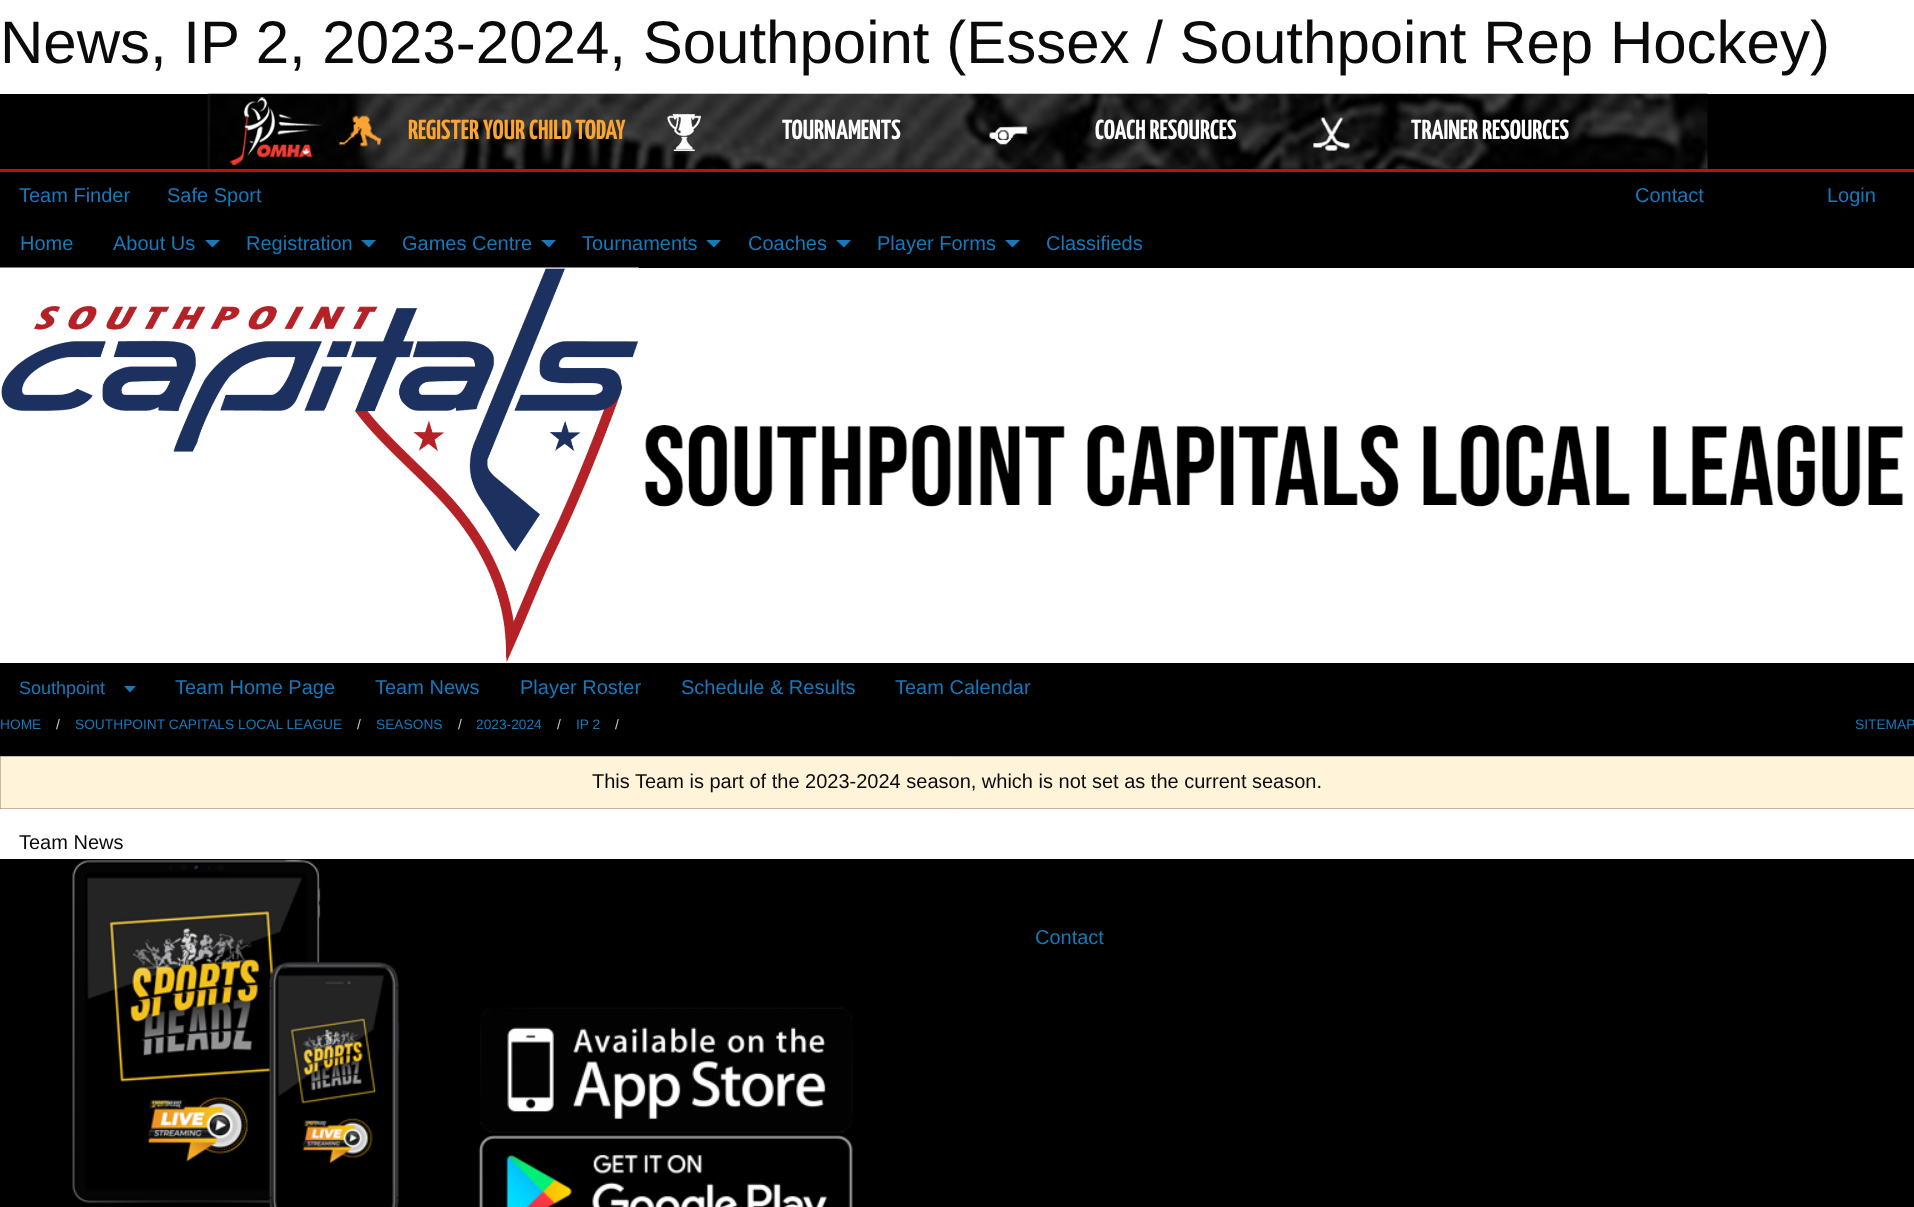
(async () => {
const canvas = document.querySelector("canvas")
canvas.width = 1914
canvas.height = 1207
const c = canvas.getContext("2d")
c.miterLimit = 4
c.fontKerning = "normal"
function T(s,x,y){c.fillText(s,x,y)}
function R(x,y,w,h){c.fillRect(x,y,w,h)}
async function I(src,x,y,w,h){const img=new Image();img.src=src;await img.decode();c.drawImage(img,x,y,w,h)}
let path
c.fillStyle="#fff"
R(0,0,1914,1207)
c.font="60px Liberation Sans"
c.fillStyle="#0a0a0a"
T("News, IP 2, 2023-2024, Southpoint (Essex / Southpoint Rep Hockey)",0,63)
c.fillStyle="#000"
R(0,94,1914,75)
c.fillStyle="#c60c0c"
R(0,169,1914,3)
await I("1.png",207,93,1501,76)
await I("2.png",229,97,94,69)
await I("3.png",338,115,44,32)
c.font="200 27.5px Yanone Kaffeesatz"
c.fillStyle="#f9a435"
T("REGISTER YOUR CHILD TODAY",408,139)
await I("4.png",667,113,35,39)
c.fillStyle="#fff"
T("TOURNAMENTS",782,139)
await I("5.png",988,126,40,19)
T("COACH RESOURCES",1095,139)
await I("6.png",1313,117,37,35)
T("TRAINER RESOURCES",1411,139)
c.fillStyle="#000"
R(0,172,1914,1035)
c.font="20px Liberation Sans"
c.fillStyle="#1779ba"
T("Team Finder",19,202)
T("Safe Sport",167,202)
T("Contact",1635,202)
T("Login",1827,202)
T("Home",20,250)
T("About Us",113,250)
path = new Path2D("M205 240h15l-7.5 7.5z")
c.fill(path)
T("Registration",246,250)
path = new Path2D("M361 240h15l-7 7.5z")
c.fill(path)
T("Games Centre",402,250)
path = new Path2D("M541 240h15l-7 7.5z")
c.fill(path)
T("Tournaments",582,250)
path = new Path2D("M706 240h15l-7 7.5z")
c.fill(path)
T("Coaches",748,250)
path = new Path2D("M836 240h15l-7 7.5z")
c.fill(path)
T("Player Forms",877,250)
path = new Path2D("M1005 240h15l-7.5 7.5z")
c.fill(path)
T("Classifieds",1046,250)
c.fillStyle="#fff"
R(0,268,1914,395)
await I("7.png",0,267,639,396)
await I("8.png",644,425,1260,82)
c.font="18px Liberation Sans"
c.fillStyle="#1779ba"
T("Southpoint",19,694)
path = new Path2D("M124 686h12l-6 6.5z")
c.fill(path)
c.font="20px Liberation Sans"
T("Team Home Page",175,694)
T("Team News",375,694)
T("Player Roster",520,694)
T("Schedule & Results",681,694)
T("Team Calendar",895,694)
c.font="13.75px Liberation Sans"
T("HOME",0,729)
c.fillStyle="#cacaca"
T("/",56,729)
c.fillStyle="#1779ba"
T("SOUTHPOINT CAPITALS LOCAL LEAGUE",75,729)
c.fillStyle="#cacaca"
T("/",357,729)
c.fillStyle="#1779ba"
T("SEASONS",376,729)
c.fillStyle="#cacaca"
T("/",458,729)
c.fillStyle="#1779ba"
T("2023-2024",476,729)
c.fillStyle="#cacaca"
T("/",557,729)
c.fillStyle="#1779ba"
T("IP 2",576,729)
c.fillStyle="#cacaca"
T("/",615,729)
c.fillStyle="#1779ba"
T("SITEMAP",1855,729)
c.fillStyle="#fff"
R(0,809,1914,50)
c.fillStyle="#fff3d9"
c.beginPath()
c.rect(.5,756.5,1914,52)
c.fill()
c.strokeStyle="#c2b9a5"
c.stroke()
c.font="20px Liberation Sans"
c.fillStyle="#0a0a0a"
T("This Team is part of the 2023-2024 season, which is not set as the current season.",592,788)
T("Team News",19,849)
await I("9.png",72,859,328,348)
await I("10.png",480,1007,373,126)
await I("11.png",478,1135,375,72)
c.fillStyle="#1779ba"
T("Contact",1035,944)
})()
